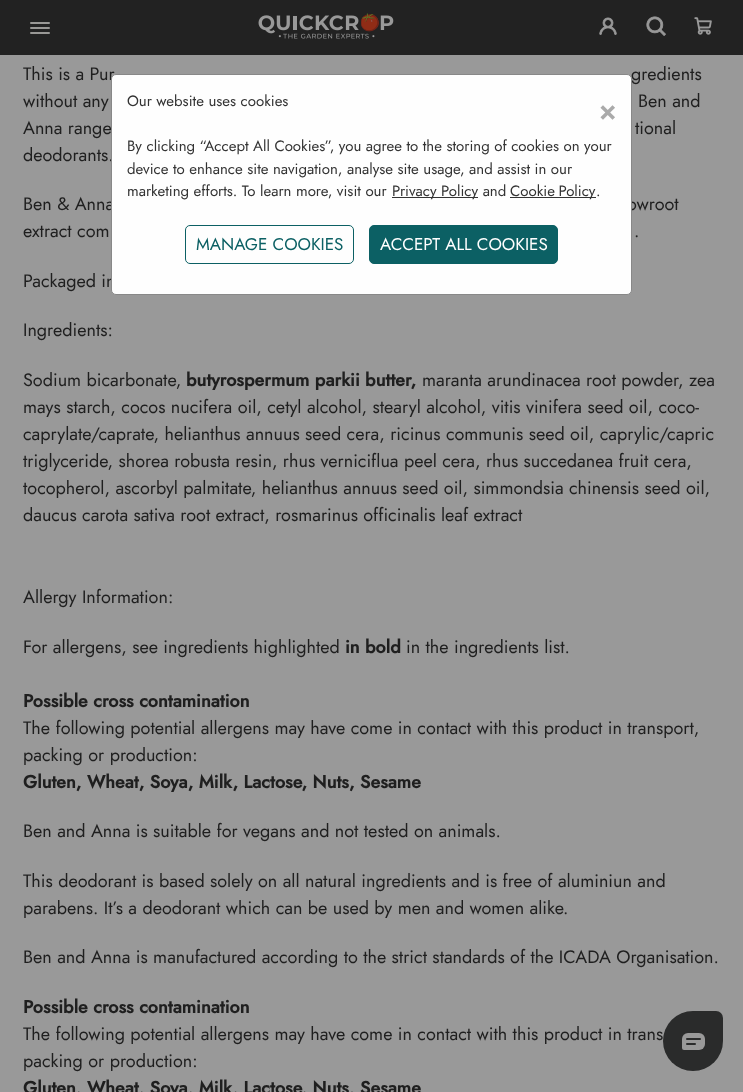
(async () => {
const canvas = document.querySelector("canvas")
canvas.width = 743
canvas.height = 1092
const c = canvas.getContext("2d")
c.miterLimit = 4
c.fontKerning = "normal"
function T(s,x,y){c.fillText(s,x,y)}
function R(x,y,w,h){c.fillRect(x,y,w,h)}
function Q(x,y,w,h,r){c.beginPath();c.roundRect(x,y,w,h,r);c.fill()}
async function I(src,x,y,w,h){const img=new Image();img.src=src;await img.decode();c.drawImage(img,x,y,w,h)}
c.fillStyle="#999"
R(0,0,743,1092)
c.fillStyle="#222"
R(0,0,743,55)
c.fillStyle="#999896"
Q(30,27,20,2,1)
Q(30,22,20,2,1)
Q(30,32,20,2,1)
await I("1.png",258,13,136,26)
await I("2.png",599,17,18,18)
await I("3.png",646,16,20,20)
await I("4.png",694,17,18,18)
c.font="18px Jost"
c.fillStyle="#1f1f1f"
T("This is a Pur",23,80)
T("gredients",631,80)
T("without any",23,107)
T("Ben and",638,107)
T("Anna range",23,134)
T("tional",635,134)
T("deodorants.",23,161)
T("Ben & Anna",23,210)
T("owroot",627,210)
T("extract com",23,237)
T(".",634,237)
T("Packaged in",23,287)
T("Ingredients:",23,336)
T("Sodium bicarbonate,",23,386)
c.font="bold 18px Jost"
T("butyrospermum parkii butter,",186,386)
c.font="18px Jost"
T("maranta arundinacea root powder, zea",422,386)
T("mays starch, cocos nucifera oil, cetyl alcohol, stearyl alcohol, vitis vinifera seed oil, coco-",23,413)
T("caprylate/caprate, helianthus annuus seed cera, ricinus communis seed oil, caprylic/capric",23,440)
T("triglyceride, shorea robusta resin, rhus verniciflua peel cera, rhus succedanea fruit cera,",23,467)
T("tocopherol, ascorbyl palmitate, helianthus annuus seed oil, simmondsia chinensis seed oil,",23,494)
T("daucus carota sativa root extract, rosmarinus officinalis leaf extract",23,521)
T("Allergy Information:",23,603)
T("For allergens, see ingredients highlighted",23,653)
c.font="bold 18px Jost"
T("in bold",345,653)
c.font="18px Jost"
T("in the ingredients list.",406,653)
c.font="bold 18px Jost"
T("Possible cross contamination",23,707)
c.font="18px Jost"
T("The following potential allergens may have come in contact with this product in transport,",23,734)
T("packing or production:",23,761)
c.font="bold 18px Jost"
T("Gluten, Wheat, Soya, Milk, Lactose, Nuts, Sesame",23,788)
c.font="18px Jost"
T("Ben and Anna is suitable for vegans and not tested on animals.",23,837)
T("This deodorant is based solely on all natural ingredients and is free of aluminiun and",23,887)
T("parabens. It’s a deodorant which can be used by men and women alike.",23,914)
T("Ben and Anna is manufactured according to the strict standards of the ICADA Organisation.",23,963)
c.font="bold 18px Jost"
T("Possible cross contamination",23,1013)
c.font="18px Jost"
T("The following potential allergens may have come in contact with this product in trans",23,1040)
T("packing or production:",23,1067)
c.font="bold 18px Jost"
T("Gluten, Wheat, Soya, Milk, Lactose, Nuts, Sesame",23,1094)
c.fillStyle="#fefefe"
c.beginPath()
c.roundRect(111.5,74.5,520,220,4.5)
c.fill()
c.strokeStyle="#888"
c.stroke()
c.font="15px Jost"
c.fillStyle="#333"
T("Our website uses cookies",127,106)
c.font="bold 28px Jost"
c.fillStyle="#aaa"
T("×",599,120)
c.font="15px Jost"
c.fillStyle="#333"
T("By clicking “Accept All Cookies”, you agree to the storing of cookies on your",127,151)
T("device to enhance site navigation, analyse site usage, and assist in our",127,174)
T("marketing efforts. To learn more, visit our",127,196)
R(392,197,86,1)
T("Privacy Policy and",392,196)
R(510,197,86,1)
c.wordSpacing="-1px"
T("Cookie Policy",510,196)
c.wordSpacing="0px"
T(".",596,196)
c.beginPath()
c.roundRect(185.5,225.5,168,38,4.5)
c.strokeStyle="#0c6064"
c.stroke()
c.font="17px Jost"
c.fillStyle="#0c6064"
T("MANAGE COOKIES",196,250)
c.beginPath()
c.roundRect(369.5,225.5,188,38,4.5)
c.fill()
c.stroke()
c.fillStyle="#fff"
T("ACCEPT ALL COOKIES",380,250)
c.fillStyle="#2a2b2b"
c.beginPath()
c.roundRect(663,1011,60,60,[30,7,30,30])
c.fill()
c.fillStyle="#999"
c.beginPath()
c.roundRect(682,1033,23,17,[6,6,6,2])
c.fill()
c.fillStyle="#2a2b2b"
Q(686,1038,15,2,1)
Q(686,1043,10,2,1)
})()
